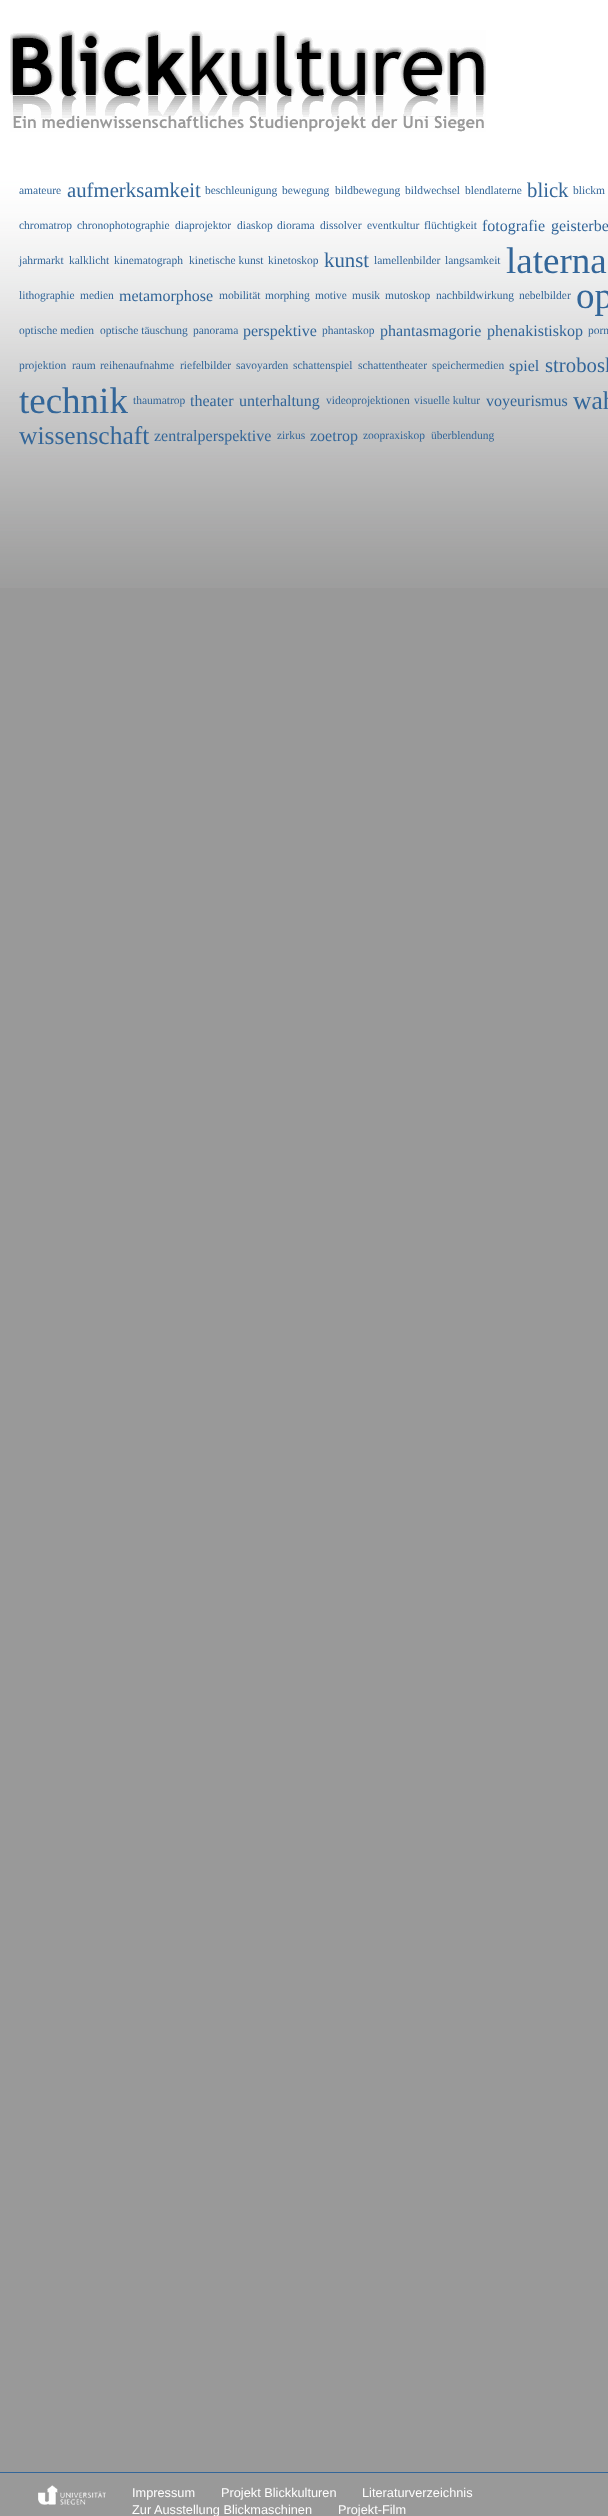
(async () => {
const canvas = document.querySelector("canvas")
canvas.width = 608
canvas.height = 2516
const c = canvas.getContext("2d")
c.miterLimit = 4
c.fontKerning = "normal"
function T(s,x,y){c.fillText(s,x,y)}
function R(x,y,w,h){c.fillRect(x,y,w,h)}
async function I(src,x,y,w,h){const img=new Image();img.src=src;await img.decode();c.drawImage(img,x,y,w,h)}
c.fillStyle="#999"
R(0,0,608,2516)
await I("1.png",0,0,608,588)
await I("2.png",10,30,476,102)
c.font="11.5px Liberation Serif"
c.fillStyle="#369"
T("amateure",19,194)
c.font="20.75px Liberation Serif"
T("aufmerksamkeit",67,197)
c.font="11.5px Liberation Serif"
T("beschleunigung",205,194)
T("bewegung",282,194)
T("bildbewegung",335,194)
T("bildwechsel",405,194)
T("blendlaterne",465,194)
c.font="20.75px Liberation Serif"
T("blick",527,197)
c.font="11.5px Liberation Serif"
T("blickm",573,194)
T("chromatrop",19,229)
T("chronophotographie",77,229)
T("diaprojektor",175,229)
T("diaskop",237,229)
T("diorama",277,229)
T("dissolver",320,229)
T("eventkultur",367,229)
T("flüchtigkeit",424,229)
c.font="16px Liberation Serif"
T("fotografie",482,231)
T("geisterbe",551,231)
c.font="11.5px Liberation Serif"
T("jahrmarkt",19,264)
T("kalklicht",69,264)
T("kinematograph",114,264)
T("kinetische kunst",189,264)
T("kinetoskop",268,264)
c.font="20.75px Liberation Serif"
T("kunst",324,267)
c.font="11.5px Liberation Serif"
T("lamellenbilder",374,264)
T("langsamkeit",445,264)
c.font="37px Liberation Serif"
T("laterna",506,273)
c.font="11.5px Liberation Serif"
T("lithographie",19,299)
T("medien",80,299)
c.font="16px Liberation Serif"
T("metamorphose",119,301)
c.font="11.5px Liberation Serif"
T("mobilität",219,299)
T("morphing",265,299)
T("motive",315,299)
T("musik",352,299)
T("mutoskop",385,299)
T("nachbildwirkung",436,299)
T("nebelbilder",519,299)
c.font="37px Liberation Serif"
T("op",576,308)
c.font="11.5px Liberation Serif"
T("optische medien",19,334)
T("optische täuschung",100,334)
T("panorama",193,334)
c.font="16px Liberation Serif"
T("perspektive",243,336)
c.font="11.5px Liberation Serif"
T("phantaskop",322,334)
c.font="16px Liberation Serif"
T("phantasmagorie",380,336)
T("phenakistiskop",487,336)
c.font="11.5px Liberation Serif"
T("porn",588,334)
T("projektion",19,369)
T("raum",72,369)
T("reihenaufnahme",100,369)
T("riefelbilder",180,369)
T("savoyarden",236,369)
T("schattenspiel",293,369)
T("schattentheater",358,369)
T("speichermedien",432,369)
c.font="16px Liberation Serif"
T("spiel",509,371)
c.font="20.75px Liberation Serif"
T("strobosk",545,372)
c.font="37px Liberation Serif"
T("technik",19,413)
c.font="11.5px Liberation Serif"
T("thaumatrop",133,404)
c.font="16px Liberation Serif"
T("theater",190,406)
T("unterhaltung",239,406)
c.font="11.5px Liberation Serif"
T("videoprojektionen",326,404)
T("visuelle kultur",414,404)
c.font="16px Liberation Serif"
T("voyeurismus",486,406)
c.font="25.5px Liberation Serif"
T("wah",573,409)
T("wissenschaft",19,444)
c.font="16px Liberation Serif"
T("zentralperspektive",154,441)
c.font="11.5px Liberation Serif"
T("zirkus",277,439)
c.font="16px Liberation Serif"
T("zoetrop",310,441)
c.font="11.5px Liberation Serif"
T("zoopraxiskop",363,439)
T("überblendung",431,439)
R(0,2472,608,1)
await I("3.png",38,2485,68,20)
c.font="12.75px Liberation Sans"
c.fillStyle="#fff"
T("Impressum",132,2497)
T("Projekt Blickkulturen",221,2497)
T("Literaturverzeichnis",362,2497)
T("Zur Ausstellung Blickmaschinen",132,2514)
T("Projekt-Film",338,2514)
})()
